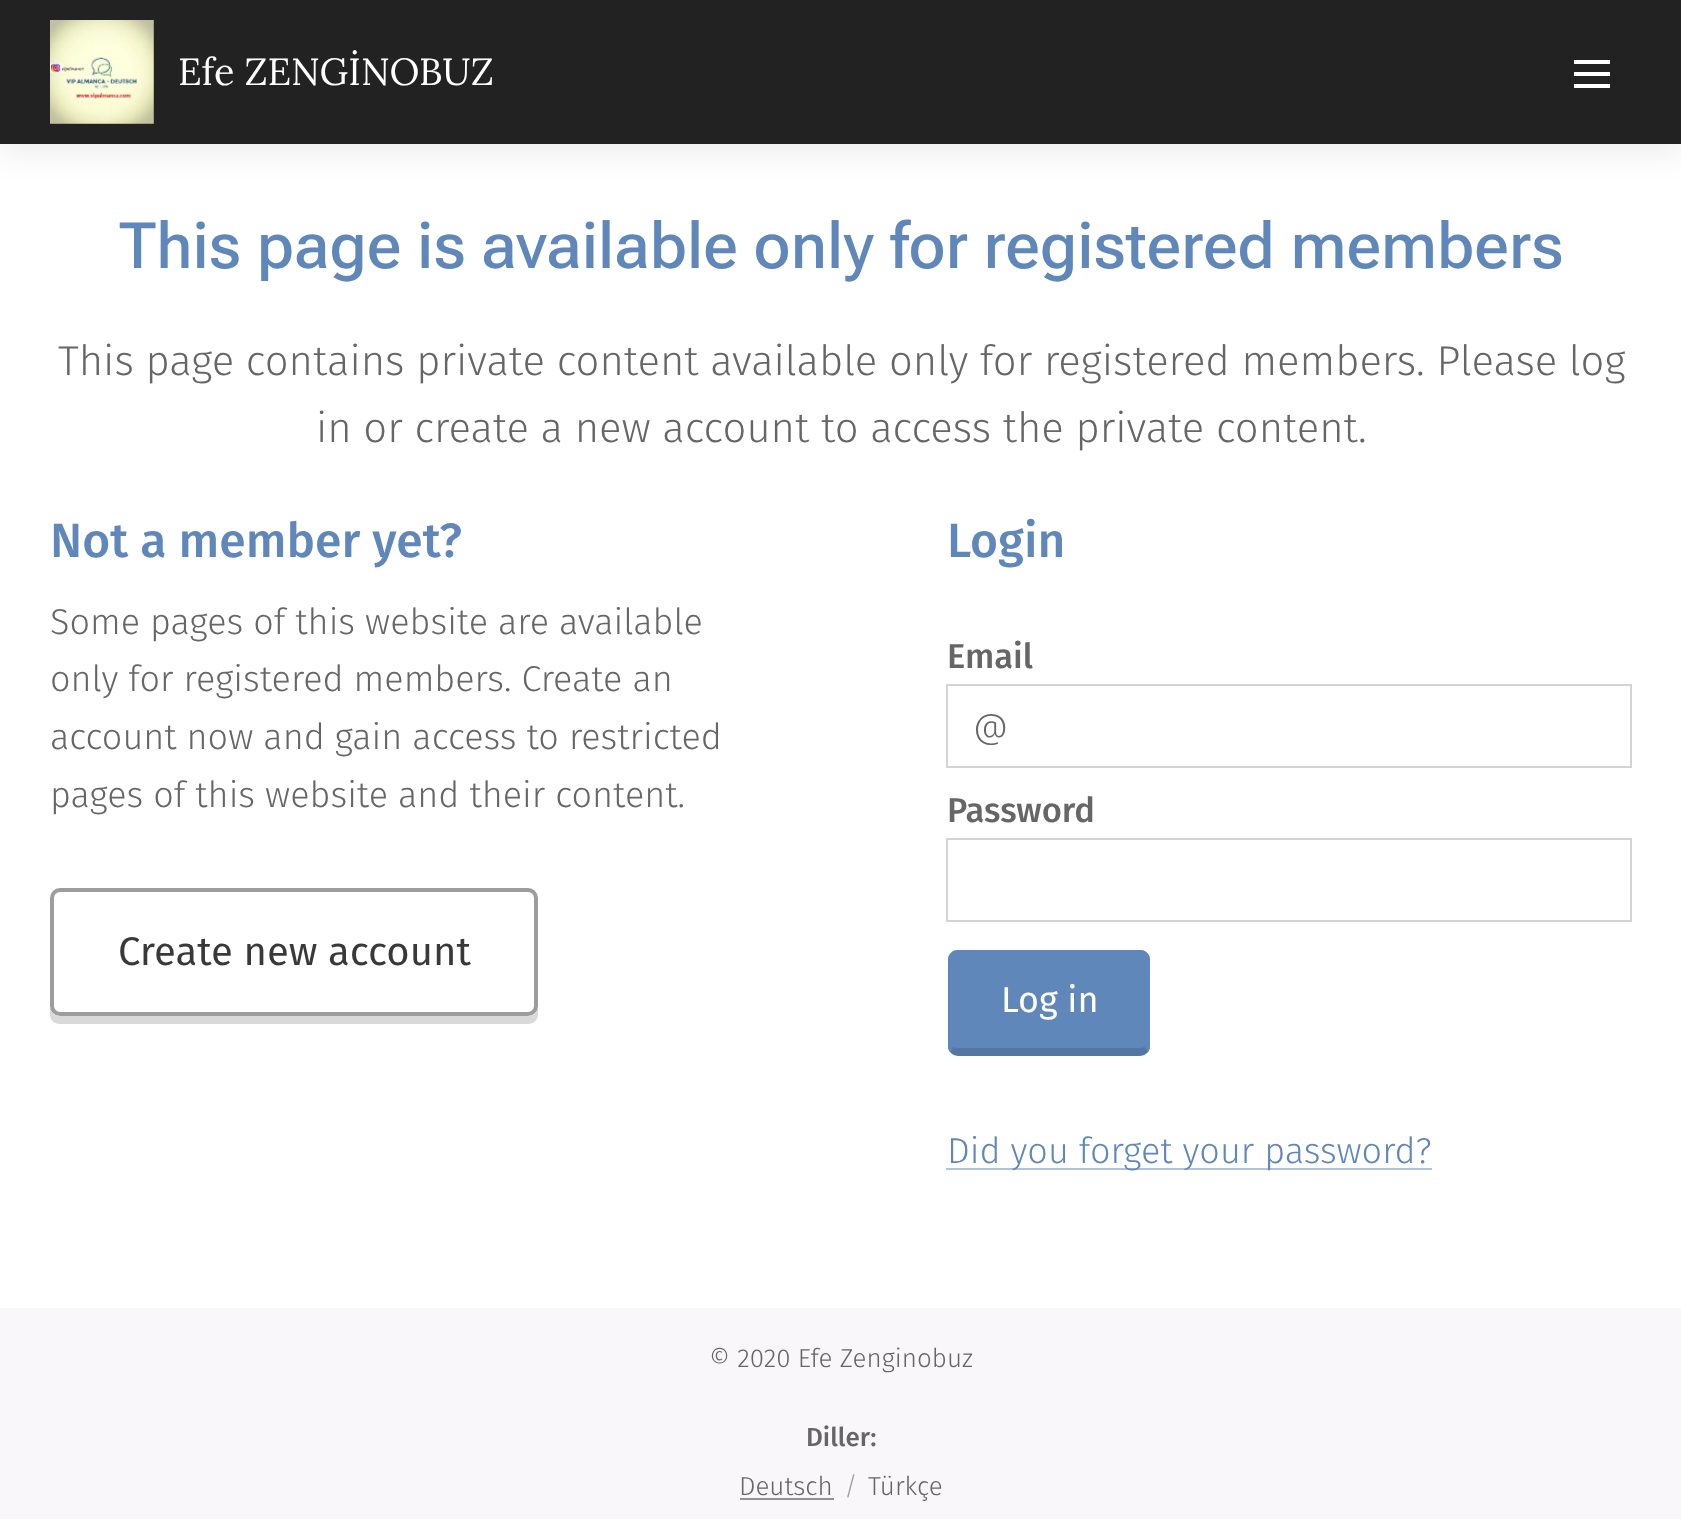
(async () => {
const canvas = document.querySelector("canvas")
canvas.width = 1681
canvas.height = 1519
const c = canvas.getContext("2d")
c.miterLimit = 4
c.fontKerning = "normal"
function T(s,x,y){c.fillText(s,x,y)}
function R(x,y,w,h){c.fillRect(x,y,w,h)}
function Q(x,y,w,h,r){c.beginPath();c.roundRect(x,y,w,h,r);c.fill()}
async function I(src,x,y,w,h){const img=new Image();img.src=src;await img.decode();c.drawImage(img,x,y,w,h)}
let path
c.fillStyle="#fff"
R(0,0,1681,1519)
c.fillStyle="#00000012"
c.filter="blur(15px)"
c.beginPath()
c.rect(0,10,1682,144)
c.fill()
c.filter="none"
c.fillStyle="#222"
R(0,0,1681,144)
await I("1.png",50,20,104,104)
c.font="37.75px Lora"
c.fillStyle="#fff"
T("Efe ZENGİNOBUZ",178,85)
R(1574,72,36,4)
R(1574,60,36,4)
R(1574,84,36,4)
c.font="500 64px Roboto Flex"
c.fillStyle="#6087b9"
T("This page is available only for registered members",119,268)
c.font="300 41.8px Fira Sans"
c.fillStyle="#666"
T("This page contains private content available only for registered members. Please log",58,375)
T("in or create a new account to access the private content.",316,442)
c.font="500 48px Fira Sans"
c.fillStyle="#6087b9"
T("Not a member yet?",50,557)
c.font="300 36px Fira Sans"
c.fillStyle="#666"
T("Some pages of this website are available",50,634)
T("only for registered members. Create an",50,691)
T("account now and gain access to restricted",50,749)
T("pages of this website and their content.",50,807)
c.fillStyle="#d9d9d9"
path = new Path2D("M50 1006v8c0 6 4 10 10 10h468c6 0 10-4 10-10v-8c0 6-4 10-10 10h-468c-6 0-10-4-10-10z")
c.fill(path)
c.beginPath()
c.roundRect(52,890,484,124,8)
c.strokeStyle="#9d9d9d"
c.lineWidth=4
c.stroke()
c.font="40px Fira Sans"
c.fillStyle="#393939"
T("Create new account",118,965)
c.font="500 48px Fira Sans"
c.fillStyle="#6087b9"
T("Login",947,557)
c.font="500 34.5px Fira Sans"
c.fillStyle="#666"
T("Email",947,668)
c.strokeStyle="#d4d4d4"
c.lineWidth=2
c.strokeRect(947,685,684,82)
c.font="300 34.5px Fira Sans"
T("@",973,738)
c.font="500 34.5px Fira Sans"
T("Password",947,822)
c.strokeRect(947,839,684,82)
c.fillStyle="#6087b9"
Q(948,950,202,106,10)
path = new Path2D("M958 950c-3 0-6 1-7 3l3 3c1-1 2-2 4-2h182c2 0 3 1 4 2l3-3c-1-2-4-3-7-3z")
c.fill(path)
path = new Path2D("M1150 1046v-86c0-3-1-6-3-7l-3 3c1 1 2 2 2 4v86l-1 1l3 5c1-1 2-4 2-6z")
c.fill(path)
c.fillStyle="#0000001f"
path = new Path2D("M958 1056h182c4 0 6-1 8-4l-3-5l-4 1h-92h-91l-5-1l-3 5c2 3 4 4 8 4z")
c.fill(path)
c.fillStyle="#6087b9"
path = new Path2D("M948 960v86c0 2 1 5 2 6l3-5l-1-1v-86c0-2 1-3 2-4l-3-3c-2 1-3 4-3 7z")
c.fill(path)
c.font="36px Fira Sans"
c.fillStyle="#fff"
T("Log in",1001,1012)
c.fillStyle="#b0c3dc"
R(946,1168,486,2)
c.font="300 36px Fira Sans"
c.fillStyle="#6087b9"
T("Did you forget your password?",947,1163)
c.fillStyle="#f9f7fa"
R(0,1308,1681,211)
c.font="300 26px Fira Sans"
c.fillStyle="#666"
T("© 2020 Efe Zenginobuz",709,1367)
c.font="500 26px Fira Sans"
T("Diller:",806,1446)
c.font="300 26px Fira Sans"
T("Deutsch",739,1495)
c.fillStyle="#929292"
R(740,1498,94,2)
c.fillStyle="#9d9d9d"
T("/",844,1495)
c.fillStyle="#666"
T("Türkçe",868,1495)
})()
